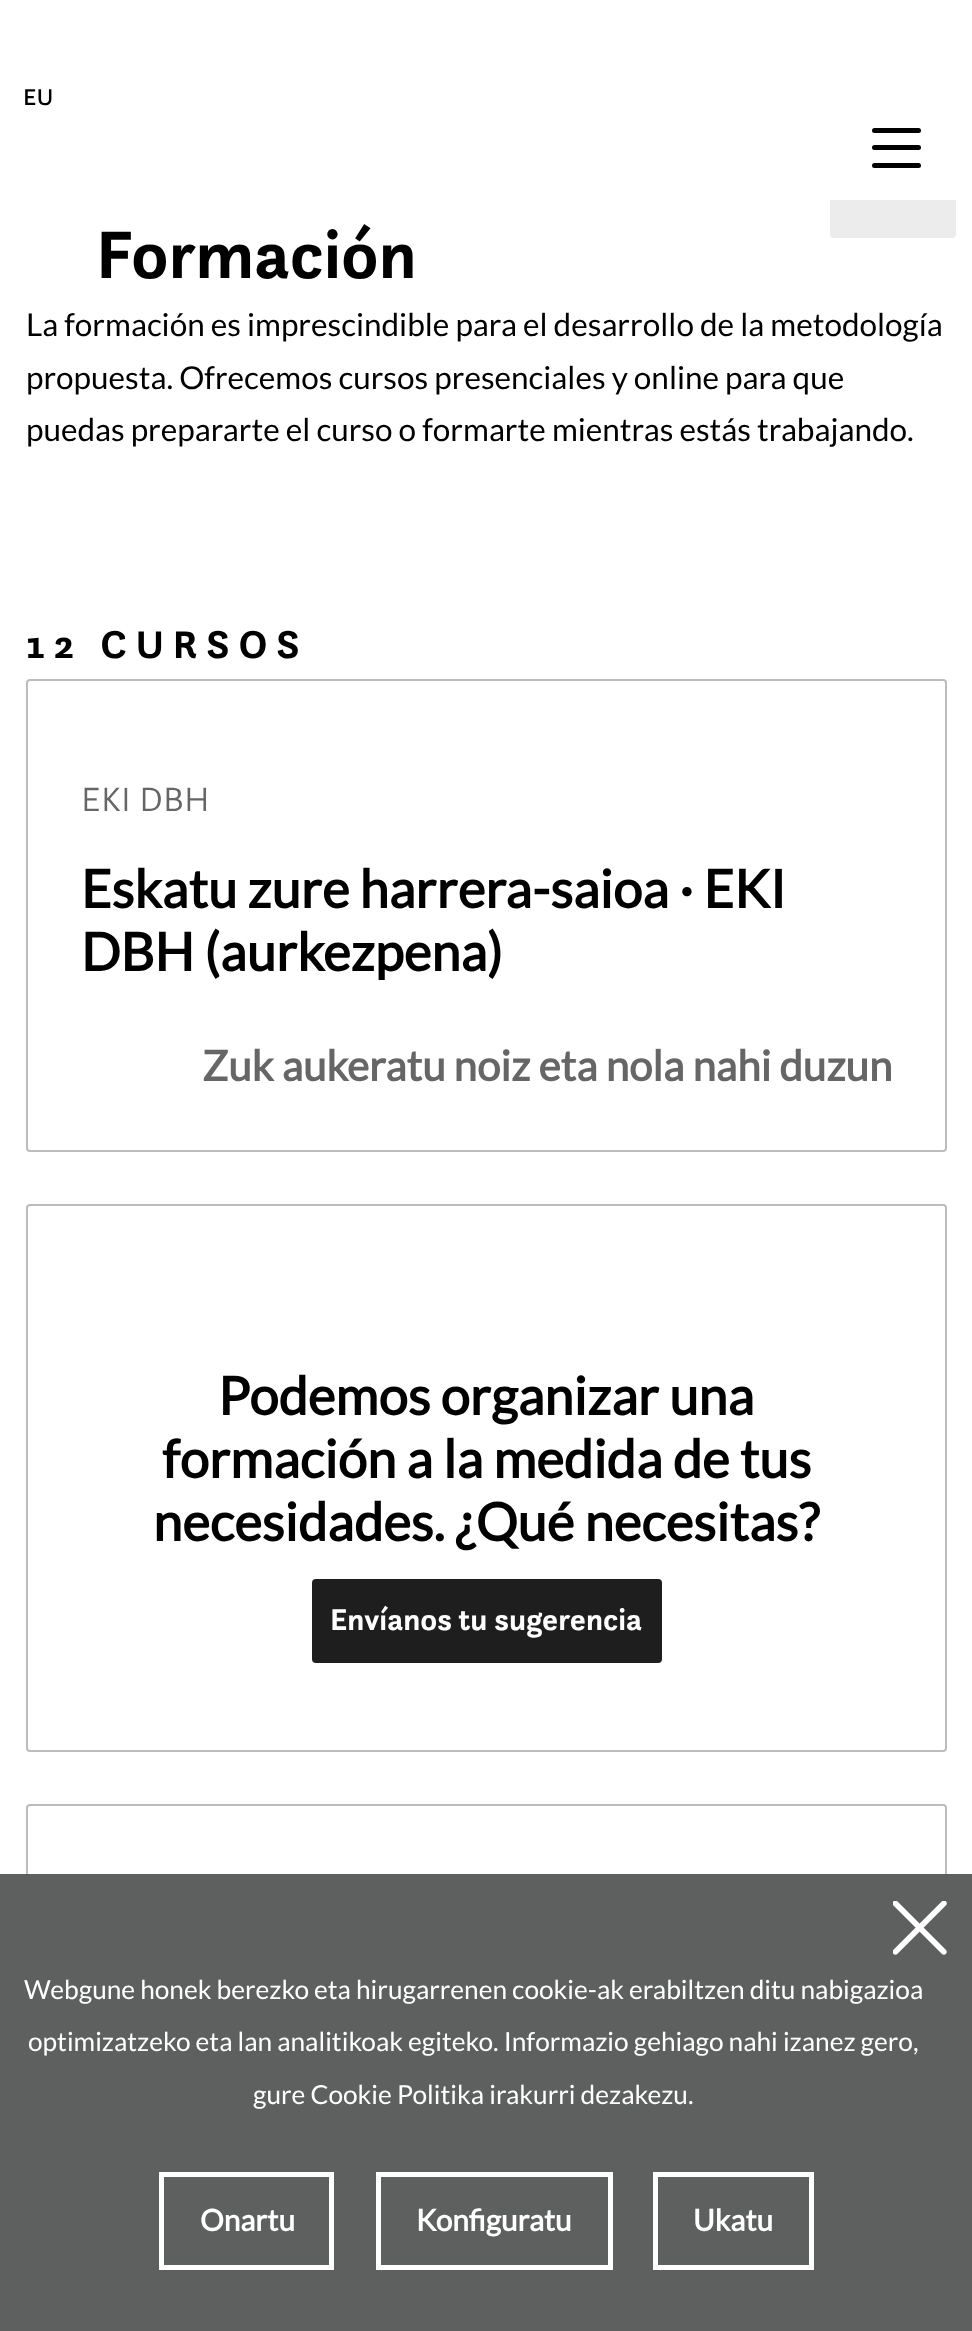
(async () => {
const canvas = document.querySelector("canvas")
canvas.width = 972
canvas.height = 2331
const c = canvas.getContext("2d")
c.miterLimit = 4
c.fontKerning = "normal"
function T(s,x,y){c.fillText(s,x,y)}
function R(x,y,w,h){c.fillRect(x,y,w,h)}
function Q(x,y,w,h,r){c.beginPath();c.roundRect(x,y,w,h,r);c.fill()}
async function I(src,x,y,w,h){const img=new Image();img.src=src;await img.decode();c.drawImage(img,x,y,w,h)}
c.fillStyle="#fff"
R(0,0,972,2331)
c.font="500 24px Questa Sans"
c.fillStyle="#000"
T("EU",23,105)
c.fillStyle="#ececec"
Q(830,158,126,80,4)
c.fillStyle="#fff"
R(830,158,126,42)
c.fillStyle="#000"
Q(872,145,49,5,2.5)
Q(872,128,49,5,2.5)
Q(872,163,49,5,2.5)
c.font="bold 70px Questa Sans"
T("Formación",96,278)
c.font="31.5px Lato"
T("La formación es imprescindible para el desarrollo de la metodología",26,336)
T("propuesta. Ofrecemos cursos presenciales y online para que",26,389)
T("puedas prepararte el curso o formarte mientras estás trabajando.",26,441)
c.letterSpacing="8.75px"
c.font="bold 40.25px Questa Sans"
T("12 CURSOS",26,658)
c.beginPath()
c.roundRect(27,680,919,471,3)
c.strokeStyle="#bcbcbc"
c.lineWidth=2
c.stroke()
c.letterSpacing="0px"
c.font="300 35px Questa Sans"
c.fillStyle="#666"
T("EKI DBH",81,811)
c.font="bold 52.5px Lato"
c.fillStyle="#000"
T("Eskatu zure harrera-saioa · EKI",81,908)
T("DBH (aurkezpena)",81,971)
c.font="bold 42px Lato"
c.fillStyle="#666"
T("Zuk aukeratu noiz eta nola nahi duzun",202,1081)
c.beginPath()
c.roundRect(27,1205,919,546,3)
c.stroke()
c.font="bold 52.5px Lato"
c.fillStyle="#000"
T("Podemos organizar una",218,1415)
T("formación a la medida de tus",162,1478)
T("necesidades. ¿Qué necesitas?",153,1541)
c.fillStyle="#1e1e1e"
Q(312,1579,350,84,4)
c.font="bold 31.5px Questa Sans"
c.fillStyle="#fff"
T("Envíanos tu sugerencia",330,1630)
c.beginPath()
c.roundRect(27,1805,919,471,3)
c.stroke()
c.fillStyle="#5e5f5f"
R(0,1874,972,457)
await I("1.png",893,1901,54,54)
c.font="26.25px Lato"
c.fillStyle="#fff"
T("Webgune honek berezko eta hirugarrenen cookie-ak erabiltzen ditu nabigazioa",24,1999)
T("optimizatzeko eta lan analitikoak egiteko. Informazio gehiago nahi izanez gero,",28,2051)
T("gure Cookie Politika irakurri dezakezu.",253,2104)
c.strokeStyle="#fff"
c.lineWidth=5
c.strokeRect(161.5,2174.5,170,93)
c.font="bold 29.75px Lato"
T("Onartu",200,2231)
c.strokeRect(378.5,2174.5,232,93)
T("Konfiguratu",416,2231)
c.strokeRect(655.5,2174.5,156,93)
T("Ukatu",693,2231)
})()
